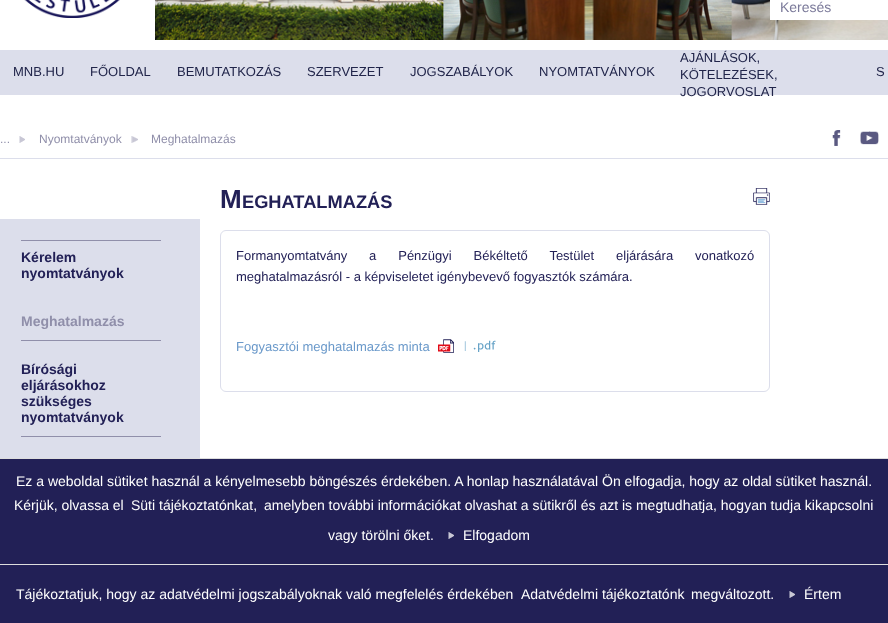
(async () => {
const canvas = document.querySelector("canvas")
canvas.width = 888
canvas.height = 623
const c = canvas.getContext("2d")
c.miterLimit = 4
c.fontKerning = "normal"
function T(s,x,y){c.fillText(s,x,y)}
function R(x,y,w,h){c.fillRect(x,y,w,h)}
async function I(src,x,y,w,h){const img=new Image();img.src=src;await img.decode();c.drawImage(img,x,y,w,h)}
c.fillStyle="#fff"
R(0,0,888,623)
await I("1.png",24,0,96,18)
await I("2.png",155,0,733,40)
R(770,0,118,20)
c.font="14px Liberation Sans"
c.fillStyle="#7b7a9a"
T("Keresés",780,12)
c.fillStyle="#dcdeeb"
R(0,50,888,45)
c.font="13px Liberation Sans"
c.fillStyle="#21254a"
T("MNB.HU",13,76)
T("FŐOLDAL",90,76)
T("BEMUTATKOZÁS",177,76)
T("SZERVEZET",307,76)
T("JOGSZABÁLYOK",410,76)
T("NYOMTATVÁNYOK",539,76)
T("AJÁNLÁSOK,",680,62)
T("KÖTELEZÉSEK,",680,79)
T("JOGORVOSLAT",680,96)
T("S",876,76)
await I("3.png",832,130,9,16)
await I("4.png",860,131,19,14)
c.font="12px Liberation Sans"
c.fillStyle="#908faa"
T("...",0,143)
await I("5.png",19,136,6,7)
T("Nyomtatványok",39,143)
await I("6.png",131,136,7,7)
T("Meghatalmazás",151,143)
c.fillStyle="#dcdeeb"
R(0,158,888,1)
R(0,219,200,239)
c.fillStyle="#908faa"
R(21,240,140,1)
c.font="bold 14px Liberation Sans"
c.fillStyle="#222056"
T("Kérelem",21,262)
T("nyomtatványok",21,278)
c.fillStyle="#908faa"
R(21,340,140,1)
T("Meghatalmazás",21,326)
R(21,436,140,1)
c.fillStyle="#222056"
T("Bírósági",21,374)
T("eljárásokhoz",21,390)
T("szükséges",21,406)
T("nyomtatványok",21,422)
c.font="bold 26px Liberation Sans"
T("M",220,208)
c.font="bold 18.25px Liberation Sans"
T("EGHATALMAZÁS",242,208)
await I("7.png",753,188,17,17)
c.beginPath()
c.roundRect(220.5,230.5,549,161,5.5)
c.strokeStyle="#dcdeeb"
c.stroke()
c.wordSpacing="18.25px"
c.font="13px Liberation Sans"
T("Formanyomtatvány a Pénzügyi Békéltető Testület eljárására vonatkozó",236,260)
c.wordSpacing="0px"
T("meghatalmazásról - a képviseletet igénybevevő fogyasztók számára.",236,281)
c.fillStyle="#6a99ca"
T("Fogyasztói meghatalmazás minta",236,351)
await I("8.png",438,339,58,14)
c.fillStyle="#222056"
R(0,459,888,164)
c.fillStyle="#ddd"
R(0,458,888,1)
c.font="14px Liberation Sans"
c.fillStyle="#fff"
T("Ez a weboldal sütiket használ a kényelmesebb böngészés érdekében. A honlap használatával Ön elfogadja, hogy az oldal sütiket használ.",16,486)
T("Kérjük, olvassa el",14,510)
T("Süti tájékoztatónkat,",131,510)
T("amelyben további információkat olvashat a sütikről és azt is megtudhatja, hogyan tudja kikapcsolni",264,510)
T("vagy törölni őket.",328,540)
await I("9.png",448,532,6,7)
T("Elfogadom",463,540)
c.fillStyle="#ddd"
R(0,564,888,1)
c.fillStyle="#fff"
T("Tájékoztatjuk, hogy az adatvédelmi jogszabályoknak való megfelelés érdekében",16,599)
T("Adatvédelmi tájékoztatónk",521,599)
T("megváltozott.",691,599)
await I("9.png",789,591,6,7)
T("Értem",804,599)
})()
